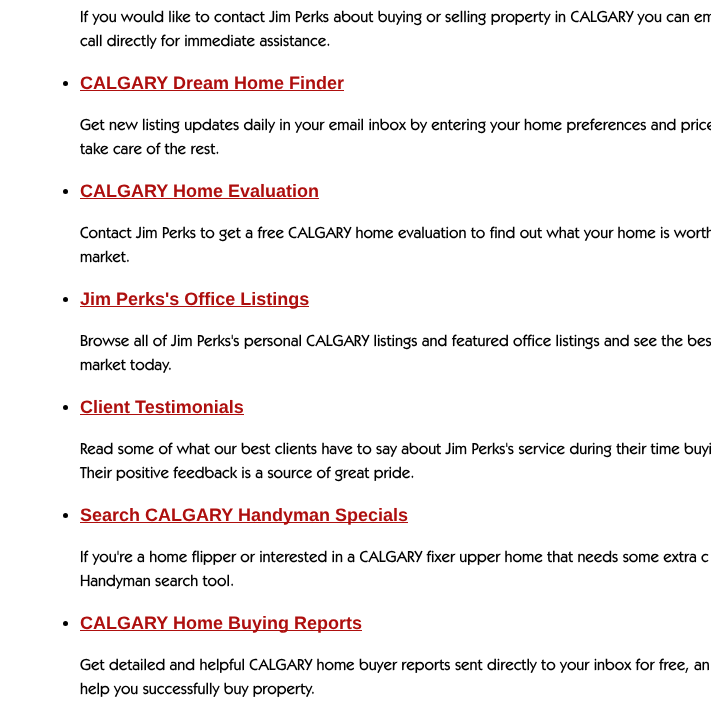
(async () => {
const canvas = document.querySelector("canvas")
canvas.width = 711
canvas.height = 703
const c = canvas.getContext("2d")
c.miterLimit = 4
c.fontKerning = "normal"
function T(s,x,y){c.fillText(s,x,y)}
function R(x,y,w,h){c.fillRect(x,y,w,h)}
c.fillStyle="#fff"
R(0,0,711,703)
c.font="500 16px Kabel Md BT"
c.fillStyle="#000"
T("If you would like to contact Jim Perks about buying or selling property in CALGARY you can em",80,22)
T("call directly for immediate assistance.",80,46)
c.beginPath()
c.arc(65.5,83.5,2.5,0,7)
c.fill()
c.font="bold 18px Liberation Sans"
c.fillStyle="#ae0f0e"
T("CALGARY Dream Home Finder",80,89)
R(80,90,264,1)
c.font="500 16px Kabel Md BT"
c.fillStyle="#000"
T("Get new listing updates daily in your email inbox by entering your home preferences and price",80,130)
T("take care of the rest.",80,154)
c.beginPath()
c.arc(65.5,191.5,2.5,0,7)
c.fill()
c.font="bold 18px Liberation Sans"
c.fillStyle="#ae0f0e"
T("CALGARY Home Evaluation",80,197)
R(80,198,239,1)
c.font="500 16px Kabel Md BT"
c.fillStyle="#000"
T("Contact Jim Perks to get a free CALGARY home evaluation to find out what your home is worth",80,238)
T("market.",80,262)
c.beginPath()
c.arc(65.5,299.5,2.5,0,7)
c.fill()
c.fillStyle="#ae0f0e"
R(80,306,229,1)
c.font="bold 18px Liberation Sans"
T("Jim Perks's Office Listings",80,305)
c.font="500 16px Kabel Md BT"
c.fillStyle="#000"
T("Browse all of Jim Perks's personal CALGARY listings and featured office listings and see the bes",80,346)
T("market today.",80,370)
c.beginPath()
c.arc(65.5,407.5,2.5,0,7)
c.fill()
c.font="bold 18px Liberation Sans"
c.fillStyle="#ae0f0e"
T("Client Testimonials",80,413)
R(80,414,164,1)
c.font="500 16px Kabel Md BT"
c.fillStyle="#000"
T("Read some of what our best clients have to say about Jim Perks's service during their time buyi",80,454)
T("Their positive feedback is a source of great pride.",80,478)
c.beginPath()
c.arc(65.5,515.5,2.5,0,7)
c.fill()
c.fillStyle="#ae0f0e"
R(80,522,328,1)
c.font="bold 18px Liberation Sans"
T("Search CALGARY Handyman Specials",80,521)
c.font="500 16px Kabel Md BT"
c.fillStyle="#000"
T("If you're a home flipper or interested in a CALGARY fixer upper home that needs some extra c",80,562)
T("Handyman search tool.",80,586)
c.beginPath()
c.arc(65.5,623.5,2.5,0,7)
c.fill()
c.fillStyle="#ae0f0e"
R(80,630,282,1)
c.font="bold 18px Liberation Sans"
T("CALGARY Home Buying Reports",80,629)
c.font="500 16px Kabel Md BT"
c.fillStyle="#000"
T("Get detailed and helpful CALGARY home buyer reports sent directly to your inbox for free, an",80,670)
T("help you successfully buy property.",80,694)
})()
